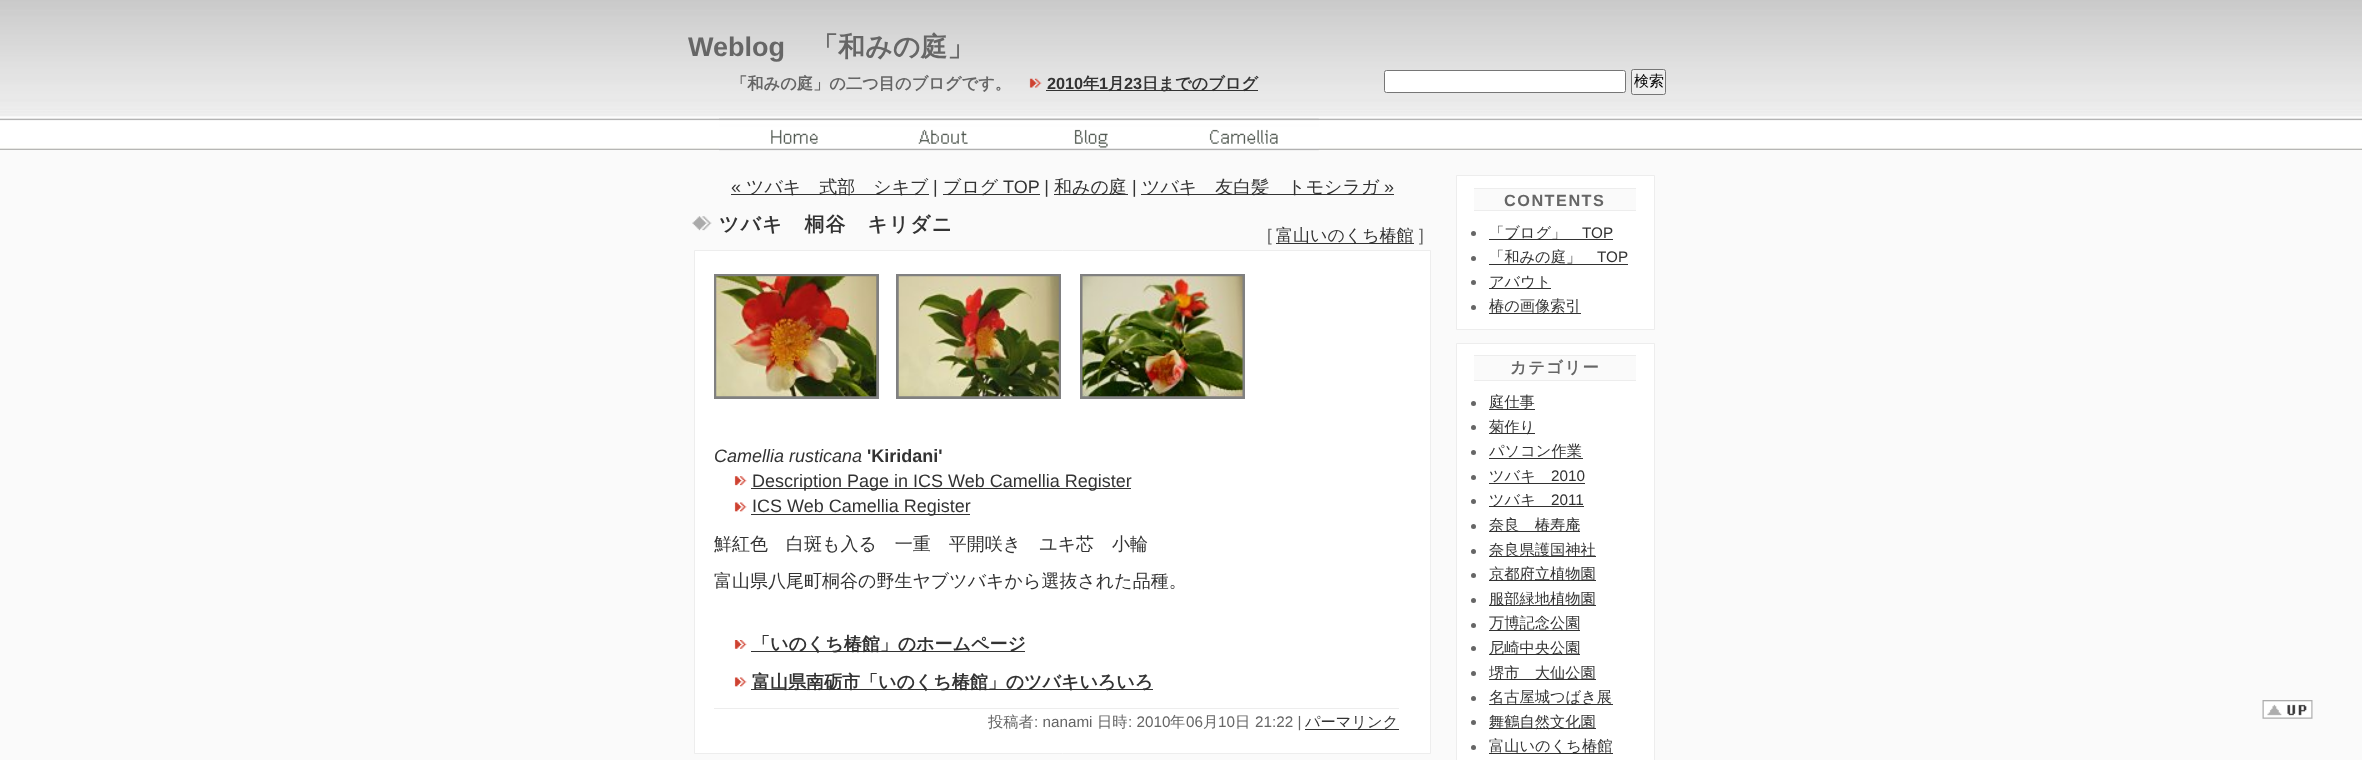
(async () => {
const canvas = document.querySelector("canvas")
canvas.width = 2362
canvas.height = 760
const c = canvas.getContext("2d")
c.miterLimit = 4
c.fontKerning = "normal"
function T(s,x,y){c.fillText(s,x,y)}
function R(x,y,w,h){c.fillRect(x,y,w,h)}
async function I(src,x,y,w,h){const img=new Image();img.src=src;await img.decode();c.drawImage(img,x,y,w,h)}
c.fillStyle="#fafafa"
R(0,0,2362,760)
await I("1.png",0,0,2362,150)
c.font="bold 27px Liberation Sans"
c.fillStyle="#666"
T("Weblog",688,56)
c.font="bold 27px WenQuanYi Zen Hei"
T("「和みの庭」",811,56)
c.font="bold 16.25px WenQuanYi Zen Hei"
T("「和みの庭」の二つ目のブログです。",731,89)
await I("2.png",1029,78,13,10)
c.font="bold 16.25px Liberation Sans"
c.fillStyle="#333"
T("2010",1047,89)
R(1046,90,212,1)
c.font="bold 16.25px WenQuanYi Zen Hei"
T("年",1083,89)
c.font="bold 16.25px Liberation Sans"
T("1",1099,89)
c.font="bold 16.25px WenQuanYi Zen Hei"
T("月",1108,89)
c.font="bold 16.25px Liberation Sans"
T("23",1124,89)
c.font="bold 16.25px WenQuanYi Zen Hei"
T("日までのブログ",1142,89)
c.fillStyle="#fff"
c.beginPath()
c.roundRect(1384.5,70.5,241,22,2)
c.fill()
c.strokeStyle="#767676"
c.stroke()
c.fillStyle="#efefef"
c.beginPath()
c.roundRect(1631.5,69.5,34,25,2)
c.fill()
c.stroke()
c.font="500 15px WenQuanYi Zen Hei"
c.fillStyle="#000"
T("検索",1634,86)
await I("3.png",719,118,150,33)
await I("4.png",771,129,47,15)
await I("5.png",868,118,151,33)
await I("6.png",918,129,50,15)
await I("5.png",1018,118,151,33)
await I("7.png",1074,129,34,19)
await I("5.png",1168,118,151,33)
await I("8.png",1209,129,69,15)
c.font="18px Liberation Sans"
c.fillStyle="#333"
T("«",731,193)
R(731,194,198,1)
c.font="500 18px WenQuanYi Zen Hei"
T("ツバキ　式部　シキブ",746,193)
c.font="18px Liberation Sans"
T("|",933,193)
R(943,194,97,1)
c.font="500 18px WenQuanYi Zen Hei"
T("ブログ",943,193)
c.font="18px Liberation Sans"
T("TOP |",1003,193)
R(1054,194,74,1)
c.font="500 18px WenQuanYi Zen Hei"
T("和みの庭",1054,193)
c.font="18px Liberation Sans"
T("|",1132,193)
R(1141,194,253,1)
c.font="500 18px WenQuanYi Zen Hei"
T("ツバキ　友白髪　トモシラガ",1142,193)
c.font="18px Liberation Sans"
T("»",1384,193)
await I("9.png",692,216,20,15)
c.letterSpacing="1.25px"
c.font="bold 19.75px WenQuanYi Zen Hei"
T("ツバキ　桐谷　キリダニ",719,231)
c.fillStyle="#fff"
c.beginPath()
c.rect(694.5,250.5,736,503)
c.fill()
c.strokeStyle="#ededed"
c.stroke()
c.letterSpacing="0px"
c.font="17px Liberation Sans"
c.fillStyle="#666"
T("[",1267,241)
c.fillStyle="#333"
R(1276,243,138,1)
c.font="500 17px WenQuanYi Zen Hei"
T("富山いのくち椿館",1276,241)
c.font="17px Liberation Sans"
c.fillStyle="#666"
T("]",1419,241)
c.strokeStyle="#808080"
c.lineWidth=3
c.strokeRect(715.5,275.5,162,122)
c.strokeRect(897.5,275.5,162,122)
c.strokeRect(1081.5,275.5,162,122)
await I("10.png",716,276,161,121)
await I("11.png",898,276,161,121)
await I("12.png",1082,276,161,121)
c.font="italic 18px Liberation Sans"
c.fillStyle="#333"
T("Camellia rusticana",714,462)
c.font="bold 18px Liberation Sans"
T("'Kiridani'",867,462)
await I("13.png",734,476,13,10)
R(751,488,380,1)
c.font="18px Liberation Sans"
T("Description Page in ICS Web Camellia Register",752,487)
await I("14.png",734,502,13,10)
R(751,514,219,1)
T("ICS Web Camellia Register",752,512)
c.font="500 18px WenQuanYi Zen Hei"
T("鮮紅色　白斑も入る　一重　平開咲き　ユキ芯　小輪",714,550)
T("富山県八尾町桐谷の野生ヤブツバキから選抜された品種。",714,587)
await I("15.png",734,640,13,9)
R(751,651,274,1)
c.font="bold 18px WenQuanYi Zen Hei"
T("「いのくち椿館」のホームページ",752,650)
await I("14.png",734,677,13,10)
R(751,689,402,1)
T("富山県南砺市「いのくち椿館」のツバキいろいろ",752,688)
c.fillStyle="#ededed"
R(714,708,685,1)
c.font="500 15.25px WenQuanYi Zen Hei"
c.fillStyle="#666"
T("投稿者",988,727)
c.font="15.25px Liberation Sans"
T(": nanami",1034,727)
c.font="500 15.25px WenQuanYi Zen Hei"
T("日時",1097,727)
c.font="15.25px Liberation Sans"
T(": 2010",1128,727)
c.font="500 15.25px WenQuanYi Zen Hei"
T("年",1170,727)
c.font="15.25px Liberation Sans"
T("06",1186,727)
c.font="500 15.25px WenQuanYi Zen Hei"
T("月",1203,727)
c.font="15.25px Liberation Sans"
T("10",1218,727)
c.font="500 15.25px WenQuanYi Zen Hei"
T("日",1235,727)
c.font="15.25px Liberation Sans"
T("21:22 |",1255,727)
c.fillStyle="#333"
R(1305,729,94,1)
c.font="500 15.25px WenQuanYi Zen Hei"
T("パーマリンク",1305,727)
c.fillStyle="#fff"
c.beginPath()
c.rect(1456.5,175.5,198,154)
c.fill()
c.strokeStyle="#ededed"
c.lineWidth=1
c.stroke()
c.fillStyle="#fafafa"
R(1474,189,162,21)
c.fillStyle="#ededed"
R(1474,188,162,1)
R(1474,210,162,1)
c.letterSpacing="1.5px"
c.font="bold 16.25px Liberation Sans"
c.fillStyle="#666"
T("CONTENTS",1504,206)
c.beginPath()
c.arc(1473.5,233.5,2.5,0,7)
c.fill()
c.fillStyle="#333"
R(1489,239,124,1)
c.letterSpacing="0px"
c.font="500 15.25px WenQuanYi Zen Hei"
T("「ブログ」",1489,238)
c.font="15.25px Liberation Sans"
T("TOP",1582,238)
c.fillStyle="#666"
c.beginPath()
c.arc(1473.5,258.5,2.5,0,7)
c.fill()
c.font="500 15.25px WenQuanYi Zen Hei"
c.fillStyle="#333"
T("「和みの庭」",1489,262)
c.font="15.25px Liberation Sans"
T("TOP",1597,262)
R(1489,264,139,1)
c.fillStyle="#666"
c.beginPath()
c.arc(1473.5,282.5,2.5,0,7)
c.fill()
c.fillStyle="#333"
R(1489,288,62,1)
c.font="500 15.25px WenQuanYi Zen Hei"
T("アバウト",1489,287)
c.fillStyle="#666"
c.beginPath()
c.arc(1473.5,307.5,2.5,0,7)
c.fill()
c.fillStyle="#333"
R(1489,313,92,1)
T("椿の画像索引",1489,311)
c.fillStyle="#fff"
c.beginPath()
c.rect(1456.5,343.5,198,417)
c.fill()
c.stroke()
c.fillStyle="#fafafa"
R(1474,356,162,24)
c.fillStyle="#ededed"
R(1474,355,162,1)
R(1474,380,162,1)
c.letterSpacing="1.5px"
c.font="bold 16.25px WenQuanYi Zen Hei"
c.fillStyle="#666"
T("カテゴリー",1510,373)
c.beginPath()
c.arc(1473.5,403.5,2.5,0,7)
c.fill()
c.letterSpacing="0px"
c.font="500 15.25px WenQuanYi Zen Hei"
c.fillStyle="#333"
T("庭仕事",1489,407)
R(1489,409,46,1)
c.fillStyle="#666"
c.beginPath()
c.arc(1473.5,427.5,2.5,0,7)
c.fill()
c.fillStyle="#333"
R(1489,433,46,1)
T("菊作り",1489,432)
c.fillStyle="#666"
c.beginPath()
c.arc(1473.5,452.5,2.5,0,7)
c.fill()
c.fillStyle="#333"
T("パソコン作業",1489,456)
R(1489,458,94,1)
c.fillStyle="#666"
c.beginPath()
c.arc(1473.5,477.5,2.5,0,7)
c.fill()
c.fillStyle="#333"
T("ツバキ",1489,481)
R(1489,483,96,1)
c.font="15.25px Liberation Sans"
T("2010",1551,481)
c.fillStyle="#666"
c.beginPath()
c.arc(1473.5,501.5,2.5,0,7)
c.fill()
c.fillStyle="#333"
R(1489,506,95,1)
c.font="500 15.25px WenQuanYi Zen Hei"
T("ツバキ",1489,505)
c.font="15.25px Liberation Sans"
T("2011",1551,505)
c.fillStyle="#666"
c.beginPath()
c.arc(1473.5,526.5,2.5,0,7)
c.fill()
c.fillStyle="#333"
R(1489,531,91,1)
c.font="500 15.25px WenQuanYi Zen Hei"
T("奈良　椿寿庵",1489,530)
c.fillStyle="#666"
c.beginPath()
c.arc(1473.5,551.5,2.5,0,7)
c.fill()
c.fillStyle="#333"
R(1489,556,107,1)
T("奈良県護国神社",1489,555)
c.fillStyle="#666"
c.beginPath()
c.arc(1473.5,575.5,2.5,0,7)
c.fill()
c.fillStyle="#333"
R(1489,580,107,1)
T("京都府立植物園",1489,579)
c.fillStyle="#666"
c.beginPath()
c.arc(1473.5,600.5,2.5,0,7)
c.fill()
c.fillStyle="#333"
R(1489,605,107,1)
T("服部緑地植物園",1489,604)
c.fillStyle="#666"
c.beginPath()
c.arc(1473.5,625.5,2.5,0,7)
c.fill()
c.fillStyle="#333"
R(1489,630,91,1)
T("万博記念公園",1489,628)
c.fillStyle="#666"
c.beginPath()
c.arc(1473.5,648.5,2.5,0,7)
c.fill()
c.fillStyle="#333"
R(1489,654,91,1)
T("尼崎中央公園",1489,653)
c.fillStyle="#666"
c.beginPath()
c.arc(1473.5,673.5,2.5,0,7)
c.fill()
c.fillStyle="#333"
R(1489,679,107,1)
T("堺市　大仙公園",1489,678)
c.fillStyle="#666"
c.beginPath()
c.arc(1473.5,698.5,2.5,0,7)
c.fill()
c.fillStyle="#333"
R(1489,704,124,1)
T("名古屋城つばき展",1489,702)
c.fillStyle="#666"
c.beginPath()
c.arc(1473.5,722.5,2.5,0,7)
c.fill()
c.fillStyle="#333"
R(1489,728,107,1)
T("舞鶴自然文化園",1489,727)
c.fillStyle="#666"
c.beginPath()
c.arc(1473.5,747.5,2.5,0,7)
c.fill()
c.fillStyle="#333"
R(1489,753,124,1)
T("富山いのくち椿館",1489,751)
await I("16.png",2262,700,51,19)
})()
